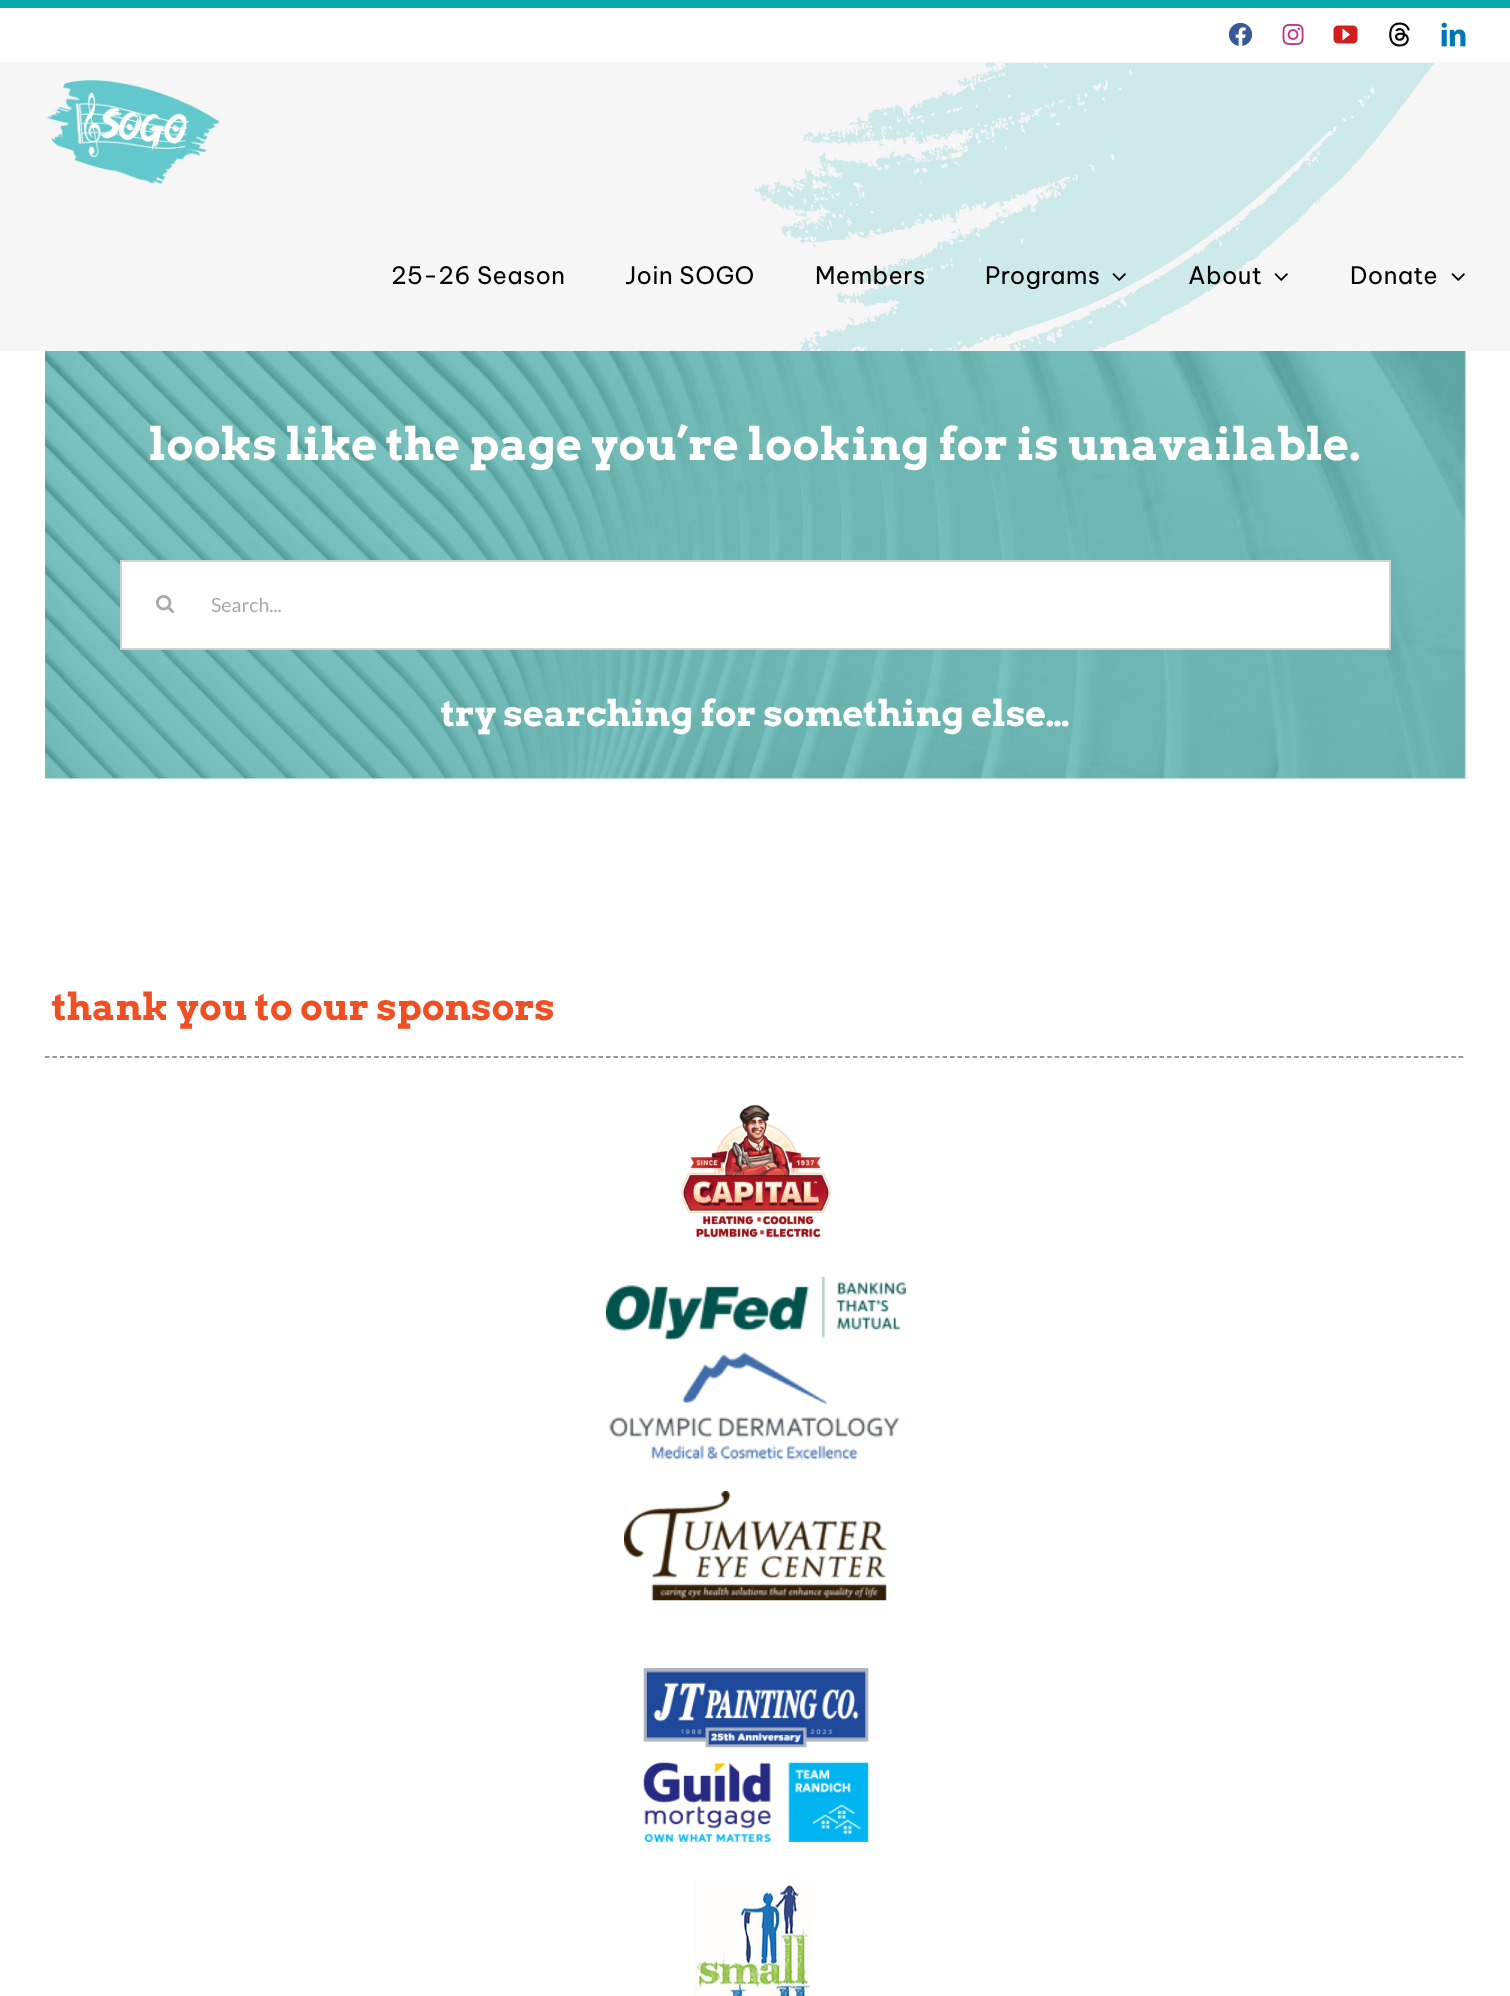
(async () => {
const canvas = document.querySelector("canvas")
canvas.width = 1510
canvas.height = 1996
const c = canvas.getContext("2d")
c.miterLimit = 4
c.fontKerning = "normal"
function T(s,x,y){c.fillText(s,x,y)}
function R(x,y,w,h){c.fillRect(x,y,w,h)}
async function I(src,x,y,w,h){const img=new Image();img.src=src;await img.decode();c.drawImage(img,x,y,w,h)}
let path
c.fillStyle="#fff"
R(0,0,1510,1996)
c.fillStyle="#00aaad"
R(0,0,1510,8)
await I("1.png",1228,22,25,24)
await I("2.png",1282,24,22,21)
await I("3.png",1333,25,25,19)
await I("4.png",1389,22,21,25)
await I("5.png",1441,22,25,25)
c.fillStyle="#f6f6f6"
R(0,64,1510,287)
c.fillStyle="#f1f6f9"
R(0,62,1510,2)
await I("6.png",754,63,680,288)
await I("7.png",46,80,174,105)
c.letterSpacing="0.4px"
c.font="24px Be Vietnam Pro"
c.fillStyle="#000"
T("25-26 Season",391,284)
T("Join SOGO",625,284)
T("Members",815,284)
T("Programs",985,284)
await I("8.png",1112,273,14,8)
T("About",1188,284)
await I("9.png",1274,273,14,8)
T("Donate",1350,284)
await I("9.png",1451,273,14,8)
await I("10.png",45,351,1421,428)
c.letterSpacing="0px"
c.font="bold 45px Arvo"
c.fillStyle="#fff"
T("looks like the page you’re looking for is unavailable.",149,460)
c.beginPath()
c.rect(121,561,1269,88)
c.fill()
c.strokeStyle="#d2d2d2"
c.lineWidth=2
c.stroke()
await I("11.png",156,595,19,19)
c.font="19.5px Lato"
c.fillStyle="#aaa9a9"
T("Search...",211,612)
c.font="bold 36px Arvo"
c.fillStyle="#fff"
T("try searching for something else…",441,726)
path = new Path2D("M45 1057h1420.5")
c.strokeStyle="#747474"
c.lineWidth=1.5
c.setLineDash([4.5,2.98])
c.stroke(path)
c.font="bold 37.5px Arvo"
c.fillStyle="#f04e23"
T("thank you to our sponsors",52,1020)
await I("12.png",681,1104,150,134)
await I("13.png",606,1276,300,64)
await I("14.png",608,1351,292,109)
await I("15.png",624,1491,263,110)
await I("16.png",643,1668,226,80)
await I("17.png",643,1762,226,80)
await I("18.png",694,1880,120,116)
})()
